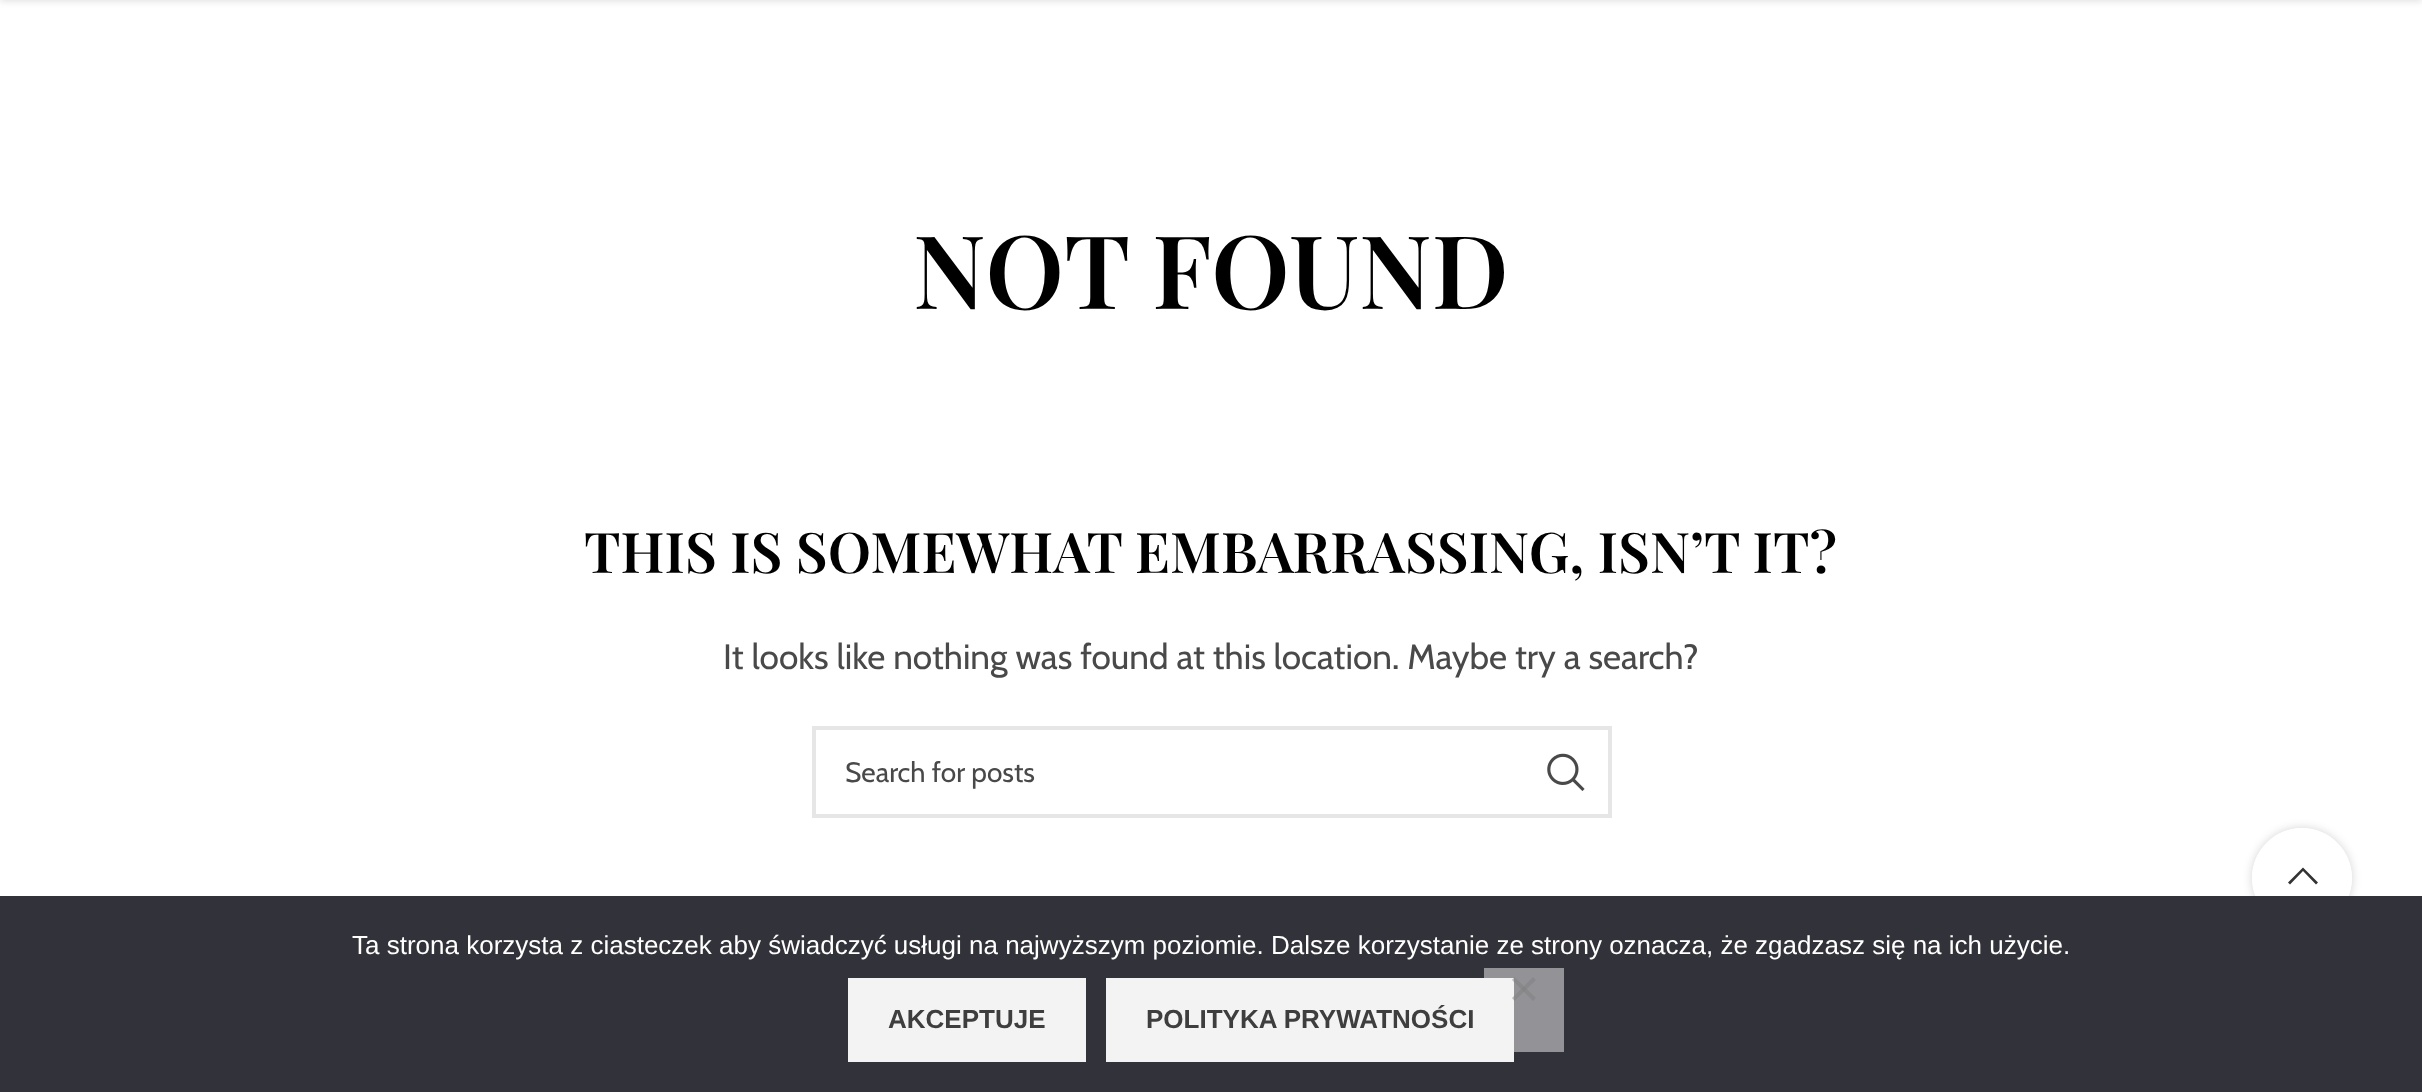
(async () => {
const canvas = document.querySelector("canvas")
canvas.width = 2422
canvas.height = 1092
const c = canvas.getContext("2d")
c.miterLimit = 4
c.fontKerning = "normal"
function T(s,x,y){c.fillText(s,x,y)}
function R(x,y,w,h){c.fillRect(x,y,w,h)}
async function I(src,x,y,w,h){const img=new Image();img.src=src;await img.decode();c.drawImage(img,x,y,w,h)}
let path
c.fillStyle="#fff"
R(0,0,2422,1092)
c.fillStyle="#0000001a"
c.filter="blur(3px)"
c.beginPath()
c.rect(0,-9,2422,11)
c.fill()
c.filter="none"
c.font="600 101.75px Playfair Display"
c.fillStyle="#000"
T("NOT FOUND",913,309)
c.font="600 56px Playfair Display"
T("THIS IS SOMEWHAT EMBARRASSING, ISN’T IT?",584,573)
c.font="35.2px Cabin"
c.fillStyle="#494949"
T("It looks like nothing was found at this location. Maybe try a search?",723,669)
c.strokeStyle="#e6e6e6"
c.lineWidth=4
c.strokeRect(814,728,796,88)
c.font="28px Cabin"
T("Search for posts",845,782)
await I("1.png",1547,753,38,38)
c.save()
path = new Path2D("M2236 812h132v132h-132zm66 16c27.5 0 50 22.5 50 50c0 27.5-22.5 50-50 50c-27.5 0-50-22.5-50-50c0-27.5 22.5-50 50-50z")
c.clip(path,"evenodd")
c.fillStyle="#0000002b"
c.filter="blur(5px)"
c.beginPath()
c.roundRect(2252,828,100,100,50)
c.fill()
c.filter="none"
c.restore()
c.fillStyle="#ffffffe6"
c.beginPath()
c.arc(2302,878,50,0,7)
c.fill()
c.fillStyle="#333"
path = new Path2D("M2316 884.5l2-2l-15-15l-15 15l2 2l13-13.5z")
c.fill(path)
c.fillStyle="#32323a"
R(0,896,2422,196)
c.fillStyle="#939397"
R(1484,968,80,84)
c.font="26px Liberation Sans"
c.fillStyle="#fff"
T("Ta strona korzysta z ciasteczek aby świadczyć usługi na najwyższym poziomie. Dalsze korzystanie ze strony oznacza, że zgadzasz się na ich użycie.",352,954)
c.fillStyle="#f3f3f3"
R(1106,978,408,84)
c.fillStyle="#80808080"
path = new Path2D("M1533 977l3 3l-21.5 21l-2.5-3z")
c.fill(path)
path = new Path2D("M1512 980l2.5-3l21.5 21l-3 3z")
c.fill(path)
c.fillStyle="#f3f3f3"
R(848,978,238,84)
c.font="bold 26px Liberation Sans"
c.fillStyle="#3e3e3e"
T("AKCEPTUJE",888,1028)
T("POLITYKA PRYWATNOŚCI",1146,1028)
})()
